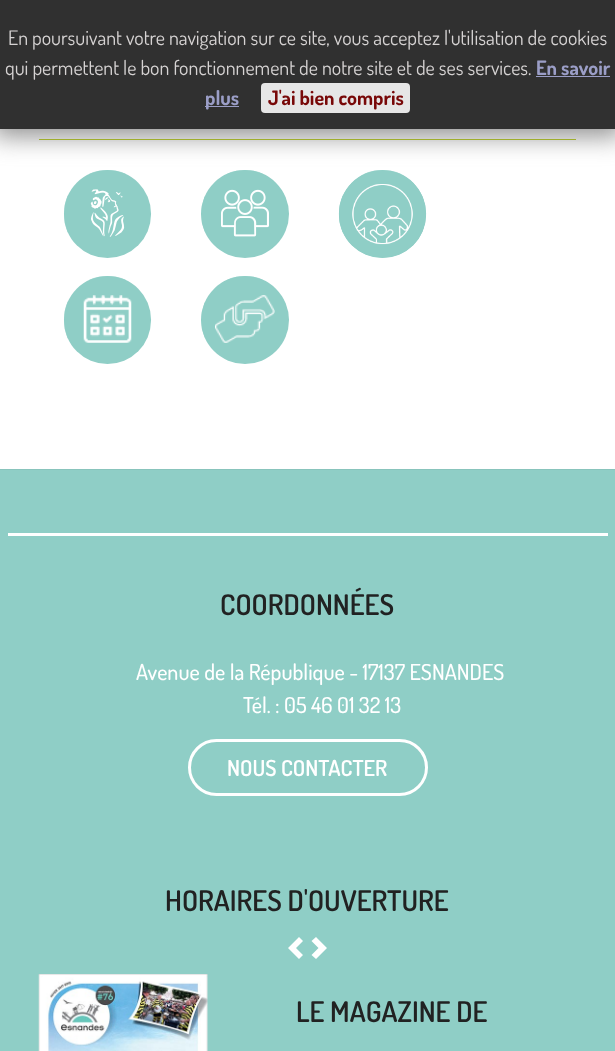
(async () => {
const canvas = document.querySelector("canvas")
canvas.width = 615
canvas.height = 1051
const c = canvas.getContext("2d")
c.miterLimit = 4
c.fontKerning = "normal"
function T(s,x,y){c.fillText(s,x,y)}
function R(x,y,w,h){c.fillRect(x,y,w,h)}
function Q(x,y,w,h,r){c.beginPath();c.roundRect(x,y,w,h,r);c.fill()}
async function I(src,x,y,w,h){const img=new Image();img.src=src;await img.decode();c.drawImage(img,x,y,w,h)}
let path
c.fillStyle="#fff"
R(0,0,615,1051)
c.fillStyle="#b4c909"
R(39,139,537,1)
c.fillStyle="#8fcec6"
Q(64,170,87,88,43.5)
c.fillStyle="#8fcec6b3"
path = new Path2D("M64 214c0 6 1 13 4 19v-38c-3 6-4 12-4 19zm44-44c-7 0-13 1-19 4h37c-6-3-12-4-18-4z")
c.fill(path,"evenodd")
c.fillStyle="#8fcec6"
c.beginPath()
c.arc(245,214,44,0,7)
c.fill()
c.fillStyle="#8fcec6b3"
path = new Path2D("M245 170c-7 0-13 1-18 4h36c-5-3-11-4-18-4zm-40 62c-5-11-5-25 0-36z")
c.fill(path,"evenodd")
c.fillStyle="#8fcec6"
Q(339,170,87,88,43.5)
c.fillStyle="#8fcec6b3"
path = new Path2D("M339 214c0 6 1 13 4 19v-38c-3 6-4 12-4 19zm43-44c-6 0-12 1-18 4h37c-6-3-12-4-19-4z")
c.fill(path,"evenodd")
await I("3.png",338,174,89,84)
c.fillStyle="#777777d6"
c.filter="blur(13px)"
c.beginPath()
c.rect(-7,-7,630,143)
c.fill()
c.filter="none"
c.fillStyle="#303030"
R(0,0,615,129)
c.font="20px Dosis"
c.fillStyle="#d6d3d3"
T("En poursuivant votre navigation sur ce site, vous acceptez l'utilisation de cookies",8,45)
T("qui permettent le bon fonctionnement de notre site et de ses services.",5,75)
c.font="bold 20px Dosis"
c.fillStyle="#9b9ec7"
T("En savoir",536,75)
R(536,76,74,1)
R(205,106,34,1)
T("plus",205,105)
c.fillStyle="#e6e6e6"
Q(261,83,149,30,4)
c.fillStyle="#780808"
T("J'ai bien compris",268,105)
await I("1.png",90,189,35,48)
await I("2.png",221,189,48,48)
c.fillStyle="#8fcec6"
Q(64,276,87,88,43.5)
c.fillStyle="#8fcec6b3"
path = new Path2D("M64 320c0 6 1 13 4 19v-38c-3 6-4 12-4 19zm44-44c-7 0-13 1-19 4h37c-6-3-12-4-18-4z")
c.fill(path,"evenodd")
await I("4.png",83,295,49,48)
c.fillStyle="#8fcec6"
c.beginPath()
c.arc(245,320,44,0,7)
c.fill()
c.fillStyle="#8fcec6b3"
path = new Path2D("M245 276c-7 0-13 1-18 4h36c-5-3-11-4-18-4zm-40 62c-5-11-5-25 0-36z")
c.fill(path,"evenodd")
await I("5.png",215,295,60,48)
c.fillStyle="#8fcec6"
R(0,470,615,581)
c.fillStyle="#88c4bc"
R(0,469,615,1)
c.fillStyle="#fff"
R(8,533,600,3)
c.font="600 28.5px Dosis"
c.fillStyle="#212222"
T("COORDONNÉES",220,615)
c.font="500 22px Dosis"
c.fillStyle="#fff"
T("Avenue de la République - 17137 ESNANDES",136,680)
T("Tél. : 05 46 01 32 13",243,713)
c.beginPath()
c.roundRect(189.5,740.5,237,54,27)
c.strokeStyle="#fff"
c.lineWidth=3
c.stroke()
c.font="600 22px Dosis"
T("NOUS CONTACTER",227,776)
c.font="600 28.5px Dosis"
c.fillStyle="#212222"
T("HORAIRES D'OUVERTURE",165,911)
c.fillStyle="#fff"
path = new Path2D("M299 959l-11-11l11-11l4 4l-7 7l7 7zm17-22l11 11l-11 11l-4.5-4l7-7l-7-7z")
c.fill(path)
await I("6.png",38,974,170,77)
c.fillStyle="#212222"
T("LE MAGAZINE DE",296,1022)
})()
